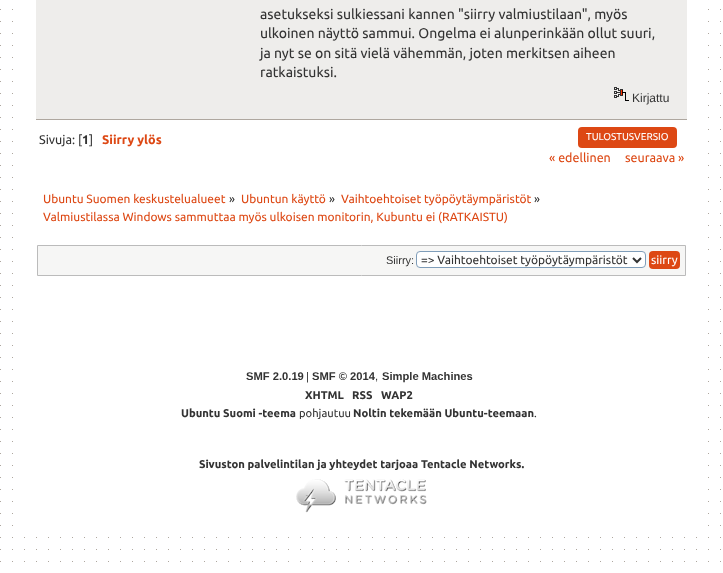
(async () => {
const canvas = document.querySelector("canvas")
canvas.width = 723
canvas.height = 573
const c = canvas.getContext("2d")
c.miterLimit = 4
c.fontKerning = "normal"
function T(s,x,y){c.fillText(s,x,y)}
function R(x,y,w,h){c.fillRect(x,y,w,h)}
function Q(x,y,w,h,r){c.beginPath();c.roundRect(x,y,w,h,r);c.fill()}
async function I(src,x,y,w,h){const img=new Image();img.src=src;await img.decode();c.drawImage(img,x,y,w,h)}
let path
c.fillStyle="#fff"
R(0,0,723,573)
await I("1.png",0,9,721,553)
Q(18,-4,687,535,4)
c.fillStyle="#eeedeb"
R(36,0,651,119)
c.font="14px Ubuntu"
c.fillStyle="#333"
T("asetukseksi sulkiessani kannen \"siirry valmiustilaan\", myös",260,19)
T("ulkoinen näyttö sammui. Ongelma ei alunperinkään ollut suuri,",260,38)
T("ja nyt se on sitä vielä vähemmän, joten merkitsen aiheen",260,58)
T("ratkaistuksi.",260,77)
await I("2.png",614,87,15,14)
c.font="12px Liberation Sans"
T("Kirjattu",632,102)
c.fillStyle="#aea79f"
R(36,119,651,1)
c.font="12.5px Ubuntu"
c.fillStyle="#333"
T("Sivuja: [",39,144)
c.font="bold 12.5px Ubuntu"
T("1",82,144)
c.font="12.5px Ubuntu"
T("]",89,144)
c.font="bold 12.5px Ubuntu"
c.fillStyle="#dd4814"
T("Siirry ylös",102,144)
Q(578,127,99,21,4)
c.font="10px Ubuntu"
c.fillStyle="#fff"
T("TULOSTUSVERSIO",586,140)
c.font="12.5px Ubuntu"
c.fillStyle="#dd4814"
T("« edellinen",549,162)
T("seuraava »",625,162)
c.font="11.95px Ubuntu"
T("Ubuntu Suomen keskustelualueet",43,203)
c.fillStyle="#333"
T("»",229,203)
c.fillStyle="#dd4814"
T("Ubuntun käyttö",241,203)
c.fillStyle="#333"
T("»",329,203)
c.fillStyle="#dd4814"
T("Vaihtoehtoiset työpöytäympäristöt",341,203)
c.fillStyle="#333"
T("»",534,203)
c.fillStyle="#dd4814"
T("Valmiustilassa Windows sammuttaa myös ulkoisen monitorin, Kubuntu ei (RATKAISTU)",43,221)
c.fillStyle="#f6f6f5"
c.beginPath()
c.rect(37.5,245.5,648,30)
c.fill()
c.strokeStyle="#bbb"
c.stroke()
c.font="11px Liberation Sans"
c.fillStyle="#333"
T("Siirry:",386,264)
c.fillStyle="#fff"
c.beginPath()
c.roundRect(416.5,251.5,229,16,3.5)
c.fill()
c.strokeStyle="#7f9db9"
c.stroke()
path = new Path2D("M633 258l4 4l4-4")
c.strokeStyle="#333"
c.lineWidth=2
c.stroke(path)
c.font="11.95px Ubuntu"
c.fillStyle="#333"
T("=> Vaihtoehtoiset työpöytäympäristöt",421,264)
c.fillStyle="#dd4814"
Q(649,251,31,18,4)
c.fillStyle="#fff"
T("siirry",651,264)
c.font="bold 11.2px Liberation Sans"
c.fillStyle="#333"
T("SMF 2.0.19",246,380)
c.font="11.2px Liberation Sans"
T("|",306,380)
c.font="bold 11.2px Liberation Sans"
T("SMF © 2014",312,380)
c.font="11.2px Liberation Sans"
T(",",375,380)
c.font="bold 11.2px Liberation Sans"
T("Simple Machines",382,380)
c.font="bold 11.2px Ubuntu"
T("XHTML",305,399)
T("RSS",352,399)
T("WAP2",381,399)
T("Ubuntu Suomi -teema",181,417)
c.font="11.2px Ubuntu"
T("pohjautuu",299,417)
c.font="bold 11.2px Ubuntu"
T("Noltin tekemään Ubuntu-teemaan",353,417)
c.font="11.2px Ubuntu"
T(".",534,417)
c.font="bold 11.2px Ubuntu"
T("Sivuston palvelintilan ja yhteydet tarjoaa Tentacle Networks.",199,468)
await I("3.png",296,479,131,34)
})()
